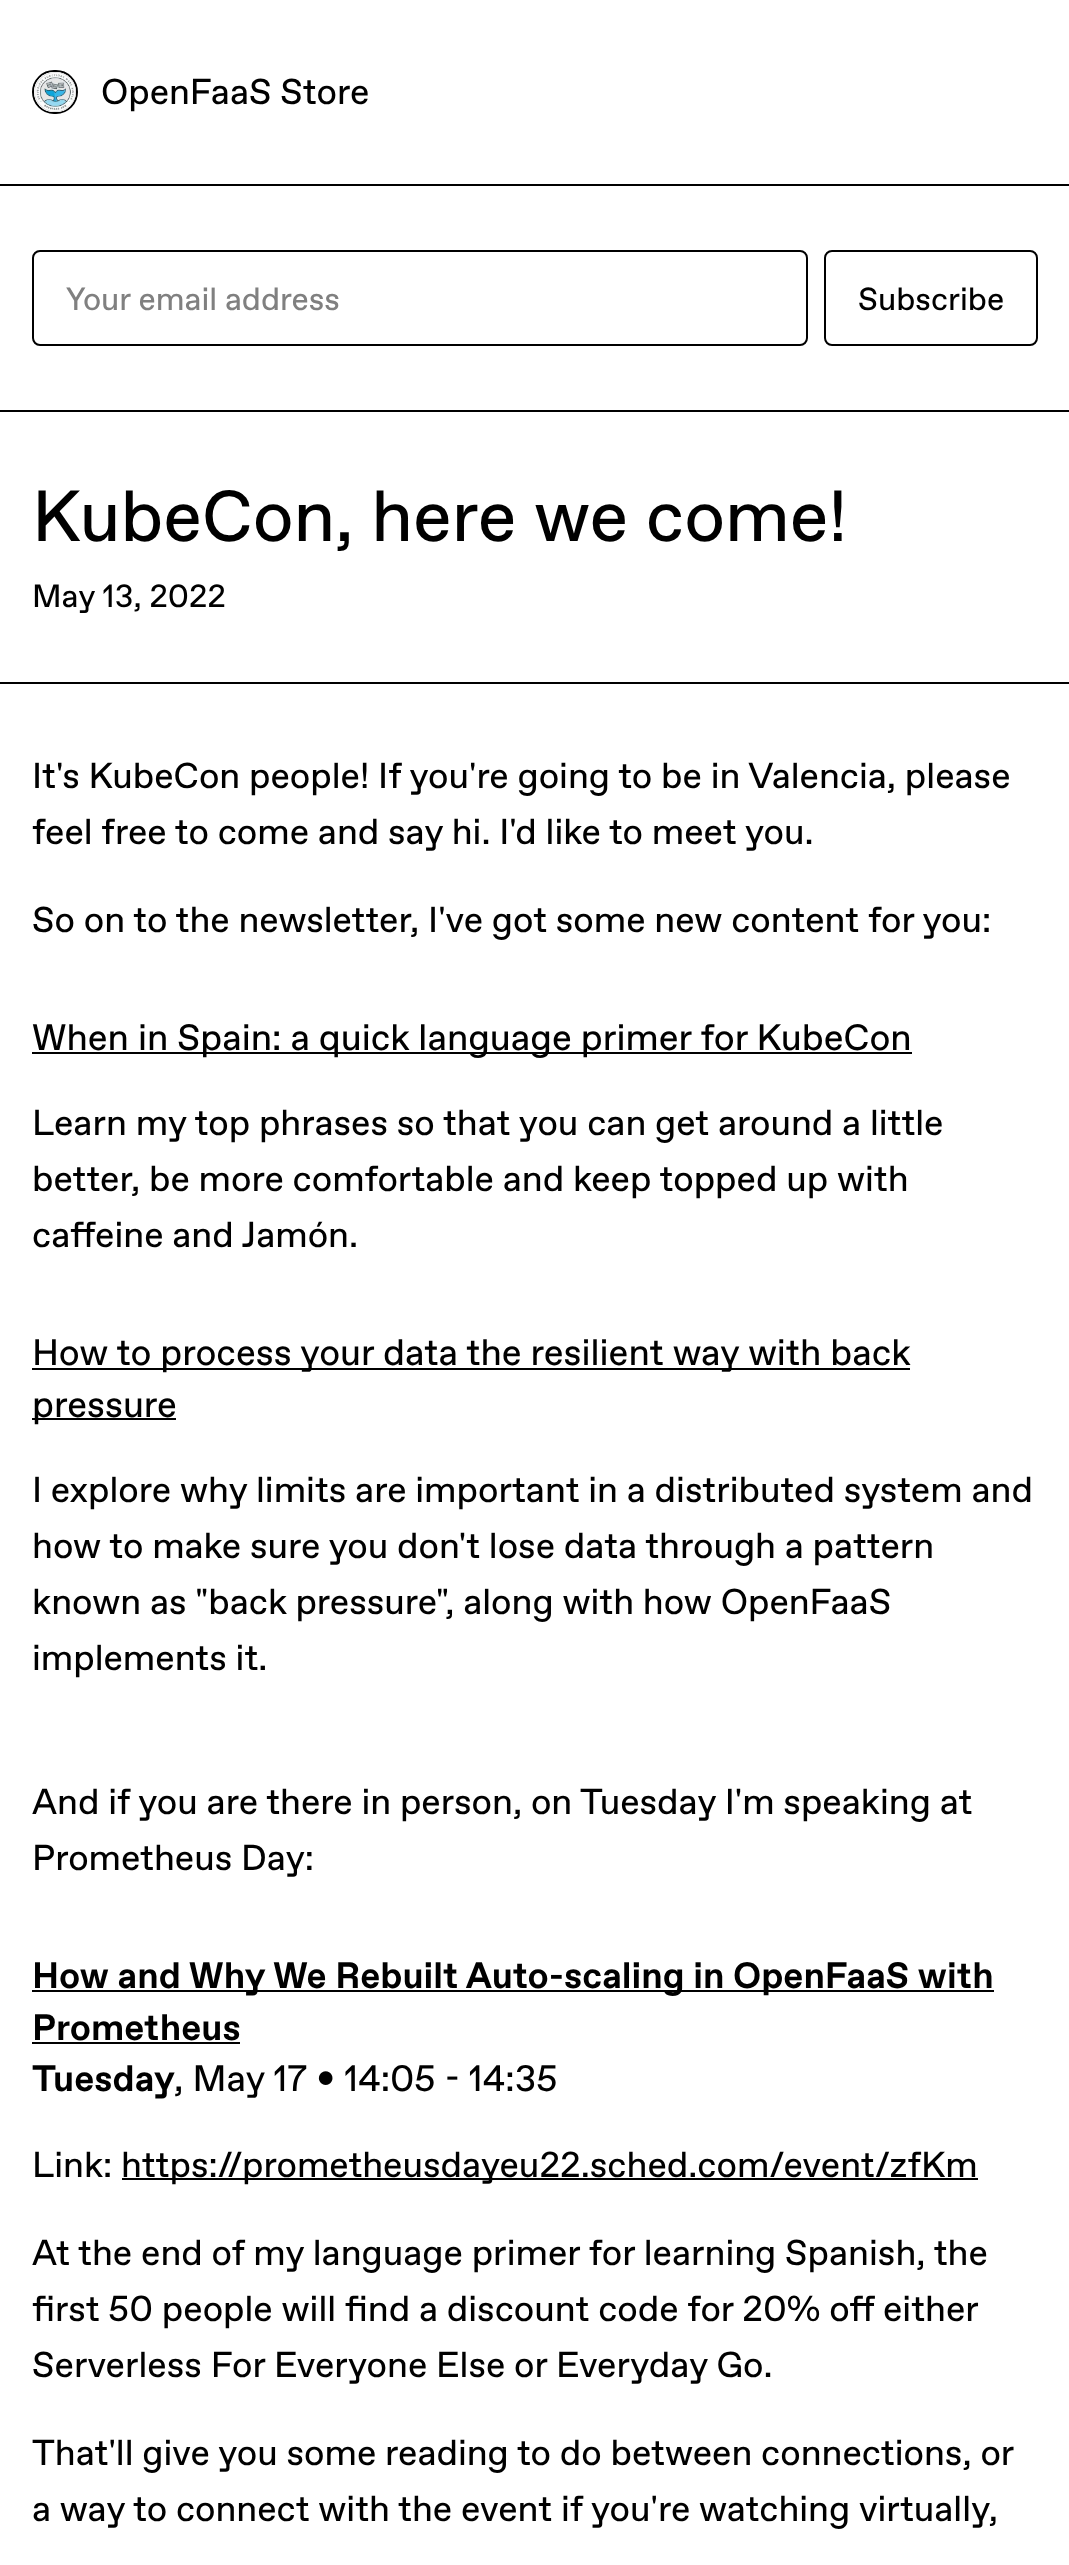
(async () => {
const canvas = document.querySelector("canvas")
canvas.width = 1069
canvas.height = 2565
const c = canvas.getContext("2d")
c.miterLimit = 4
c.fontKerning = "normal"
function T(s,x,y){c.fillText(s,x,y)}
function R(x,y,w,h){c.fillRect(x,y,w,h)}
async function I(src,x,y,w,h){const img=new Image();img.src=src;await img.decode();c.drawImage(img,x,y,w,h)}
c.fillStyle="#fff"
R(0,0,1069,2565)
c.fillStyle="#000"
R(0,184,1069,2)
c.beginPath()
c.roundRect(33,71,44,42,21)
c.strokeStyle="#000"
c.lineWidth=2
c.stroke()
await I("1.png",34,72,42,40)
c.font="36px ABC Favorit"
T("OpenFaaS Store",101,104)
R(0,410,1069,2)
c.beginPath()
c.roundRect(33,251,774,94,7)
c.stroke()
c.font="32px ABC Favorit"
c.fillStyle="#808080"
T("Your email address",66,310)
c.beginPath()
c.roundRect(825,251,212,94,7)
c.stroke()
c.fillStyle="#000"
T("Subscribe",858,310)
R(0,682,1069,2)
c.font="72px ABC Favorit"
T("KubeCon, here we come!",32,541)
c.font="32px ABC Favorit"
T("May 13, 2022",32,607)
c.font="36px ABC Favorit"
T("It's KubeCon people! If you're going to be in Valencia, please",32,788)
T("feel free to come and say hi. I'd like to meet you.",32,844)
T("So on to the newsletter, I've got some new content for you:",32,932)
R(32,1052,880,2)
c.font="36.8px ABC Favorit"
T("When in Spain: a quick language primer for KubeCon",32,1050)
c.font="36px ABC Favorit"
T("Learn my top phrases so that you can get around a little",32,1135)
T("better, be more comfortable and keep topped up with",32,1191)
T("caffeine and Jamón.",32,1247)
R(32,1368,878,2)
c.font="36.8px ABC Favorit"
T("How to process your data the resilient way with back",32,1365)
R(32,1418,144,2)
T("pressure",32,1417)
c.font="36px ABC Favorit"
T("I explore why limits are important in a distributed system and",32,1502)
T("how to make sure you don't lose data through a pattern",32,1558)
T("known as \"back pressure\", along with how OpenFaaS",32,1614)
T("implements it.",32,1670)
T("And if you are there in person, on Tuesday I'm speaking at",32,1814)
T("Prometheus Day:",32,1870)
R(32,1990,962,2)
c.font="bold 36.8px ABC Favorit"
T("How and Why We Rebuilt Auto-scaling in OpenFaaS with",32,1988)
T("Prometheus",32,2040)
R(32,2042,208,2)
T("Tuesday",32,2091)
c.font="36.8px ABC Favorit"
T(", May 17 • 14:05 - 14:35",174,2091)
c.font="36px ABC Favorit"
T("Link:",32,2177)
R(122,2178,856,2)
T("https://prometheusdayeu22.sched.com/event/zfKm",121,2177)
T("At the end of my language primer for learning Spanish, the",32,2265)
T("first 50 people will find a discount code for 20% off either",32,2321)
T("Serverless For Everyone Else or Everyday Go.",32,2377)
T("That'll give you some reading to do between connections, or",32,2465)
T("a way to connect with the event if you're watching virtually,",32,2521)
})()
